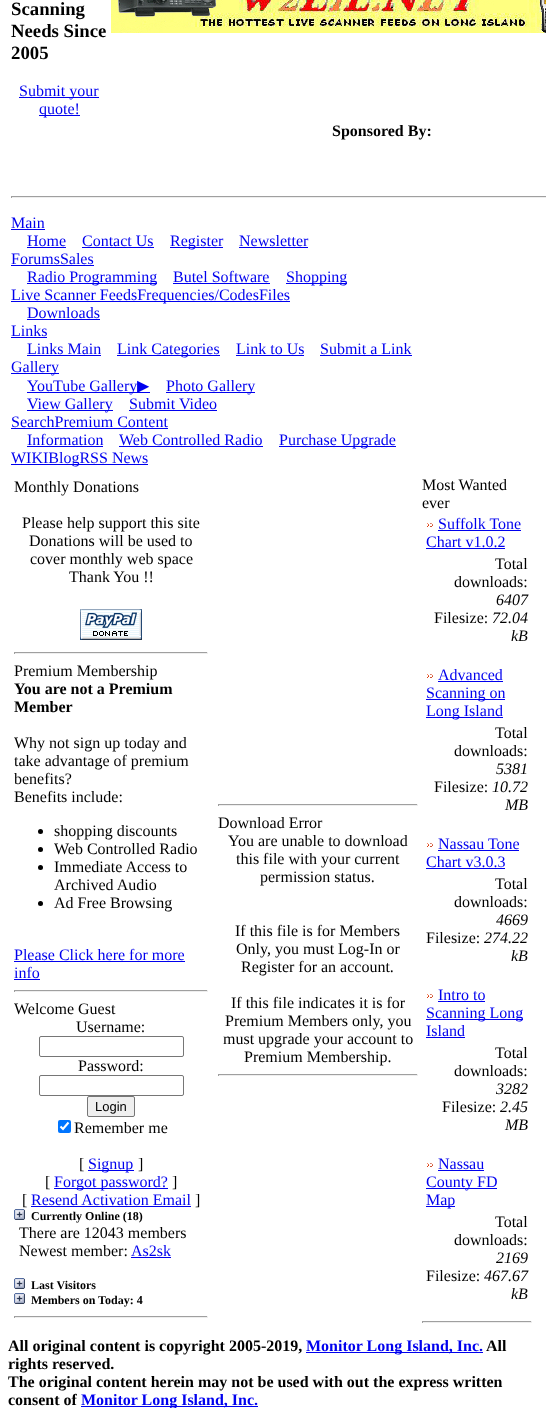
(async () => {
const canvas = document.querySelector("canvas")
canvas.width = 546
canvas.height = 1408
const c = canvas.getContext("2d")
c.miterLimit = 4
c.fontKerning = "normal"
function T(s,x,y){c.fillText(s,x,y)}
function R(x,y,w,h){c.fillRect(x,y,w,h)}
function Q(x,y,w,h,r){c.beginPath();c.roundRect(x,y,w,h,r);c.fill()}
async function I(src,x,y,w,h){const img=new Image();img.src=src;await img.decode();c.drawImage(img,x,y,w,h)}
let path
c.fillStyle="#fff"
R(0,0,546,1408)
c.font="bold 18.75px Liberation Serif"
c.fillStyle="#000"
T("Scanning",11,15)
T("Needs Since",11,37)
T("2005",11,59)
c.fillStyle="#00e"
R(19,97,80,1)
c.font="16px Liberation Serif"
T("Submit your",19,96)
R(39,115,41,1)
T("quote!",39,114)
await I("1.png",111,0,435,33)
c.font="bold 16px Liberation Serif"
c.fillStyle="#000"
T("Sponsored By:",332,136)
c.fillStyle="#9f9f9f"
R(11,196,535,1)
c.fillStyle="#eee"
R(11,197,535,1)
c.fillStyle="#9f9f9f"
R(11,196,1,2)
c.font="16px Liberation Serif"
c.fillStyle="#00e"
T("Main",11,228)
R(11,229,34,1)
T("Home",27,246)
R(27,247,39,1)
T("Contact Us",82,246)
R(82,247,72,1)
R(170,247,53,1)
T("Register",170,246)
T("Newsletter",239,246)
R(239,247,69,1)
T("ForumsSales",11,264)
R(11,265,83,1)
R(27,283,130,1)
T("Radio Programming",27,282)
T("Butel Software",173,282)
R(173,283,97,1)
R(286,283,61,1)
T("Shopping",286,282)
R(11,301,279,1)
T("Live Scanner FeedsFrequencies/CodesFiles",11,300)
T("Downloads",27,318)
R(27,319,73,1)
T("Links",11,336)
R(11,337,36,1)
T("Links Main",27,354)
R(27,355,74,1)
R(117,355,103,1)
T("Link Categories",117,354)
T("Link to Us",236,354)
R(236,355,68,1)
T("Submit a Link",320,354)
R(320,355,92,1)
R(11,373,48,1)
T("Gallery",11,372)
R(27,392,110,1)
T("YouTube Gallery",27,391)
R(137,392,13,1)
c.font="16px DejaVu Sans"
T("▶",137,391)
R(166,392,89,1)
c.font="16px Liberation Serif"
T("Photo Gallery",166,391)
R(27,410,86,1)
T("View Gallery",27,409)
T("Submit Video",129,409)
R(129,410,88,1)
T("SearchPremium Content",11,427)
R(11,428,157,1)
T("Information",27,445)
R(27,446,76,1)
T("Web Controlled Radio",119,445)
R(119,446,144,1)
R(279,446,117,1)
T("Purchase Upgrade",279,445)
R(11,464,68,1)
T("WIKIBlogRSS News",11,463)
R(79,464,69,1)
c.fillStyle="#000"
T("Monthly Donations",14,492)
T("Please help support this site",22,528)
T("Donations will be used to",29,546)
T("cover monthly web space",30,564)
T("Thank You !!",69,582)
await I("2.png",80,609,62,31)
c.fillStyle="#9f9f9f"
R(14,652,194,1)
c.fillStyle="#eee"
R(207,652,1,2)
R(14,653,194,1)
c.fillStyle="#9f9f9f"
R(14,652,1,2)
c.fillStyle="#000"
T("Premium Membership",14,676)
c.font="bold 16px Liberation Serif"
T("You are not a Premium",14,694)
T("Member",14,712)
c.font="16px Liberation Serif"
T("Why not sign up today and",14,748)
T("take advantage of premium",14,766)
T("benefits?",14,784)
T("Benefits include:",14,802)
c.beginPath()
c.arc(40.5,831.5,2.5,0,7)
c.fill()
T("shopping discounts",54,836)
c.beginPath()
c.arc(40.5,849.5,2.5,0,7)
c.fill()
T("Web Controlled Radio",54,854)
c.beginPath()
c.arc(40.5,867.5,2.5,0,7)
c.fill()
T("Immediate Access to",54,872)
T("Archived Audio",54,890)
c.beginPath()
c.arc(40.5,903.5,2.5,0,7)
c.fill()
T("Ad Free Browsing",54,908)
c.fillStyle="#00e"
T("Please Click here for more",14,960)
R(14,961,171,1)
T("info",14,978)
R(14,979,26,1)
c.fillStyle="#9f9f9f"
R(14,990,194,1)
c.fillStyle="#eee"
R(207,990,1,2)
R(14,991,194,1)
c.fillStyle="#9f9f9f"
R(14,990,1,2)
c.fillStyle="#000"
T("Welcome Guest",14,1014)
T("Username:",76,1032)
c.beginPath()
c.roundRect(39.5,1036.5,144,20,1.5)
c.strokeStyle="#767676"
c.stroke()
T("Password:",78,1071)
c.beginPath()
c.roundRect(39.5,1075.5,144,20,1.5)
c.stroke()
c.fillStyle="#efefef"
c.beginPath()
c.roundRect(87.5,1096.5,47,20,1.5)
c.fill()
c.stroke()
c.font="13px Liberation Sans"
c.fillStyle="#000"
T("Login",95,1111)
c.fillStyle="#0075ff"
Q(58,1120,13,13,2)
path = new Path2D("M60.5 1126.5l2.5 2.5l5.5-6.5")
c.strokeStyle="#fff"
c.lineWidth=2.1
c.stroke(path)
c.font="16px Liberation Serif"
c.fillStyle="#000"
T("Remember me",74,1133)
T("[",79,1169)
c.fillStyle="#00e"
R(88,1170,46,1)
T("Signup",88,1169)
c.fillStyle="#000"
T("]",138,1169)
T("[",45,1187)
c.fillStyle="#00e"
R(54,1188,114,1)
T("Forgot password?",54,1187)
c.fillStyle="#000"
T("]",172,1187)
T("[",22,1205)
c.fillStyle="#00e"
T("Resend Activation Email",31,1205)
R(31,1206,160,1)
c.fillStyle="#000"
T("]",195,1205)
await I("3.png",14,1209,11,11)
c.font="bold 12px Liberation Serif"
T("Currently Online (18)",31,1220)
c.font="16px Liberation Serif"
T("There are 12043 members",19,1238)
T("Newest member:",19,1256)
c.fillStyle="#00e"
T("As2sk",131,1256)
R(131,1257,40,1)
await I("3.png",14,1278,11,11)
c.font="bold 12px Liberation Serif"
c.fillStyle="#000"
T("Last Visitors",31,1289)
await I("3.png",14,1293,11,11)
T("Members on Today: 4",31,1304)
c.fillStyle="#9f9f9f"
R(14,1316,194,1)
c.fillStyle="#eee"
R(207,1316,1,2)
R(14,1317,194,1)
c.fillStyle="#9f9f9f"
R(14,1316,1,2)
R(218,804,200,1)
c.fillStyle="#eee"
R(417,804,1,2)
R(218,805,200,1)
c.fillStyle="#9f9f9f"
R(218,804,1,2)
c.font="16px Liberation Serif"
c.fillStyle="#000"
T("Download Error",218,828)
T("You are unable to download",228,846)
T("this file with your current",236,864)
T("permission status.",260,882)
T("If this file is for Members",235,936)
T("Only, you must Log-In or",236,954)
T("Register for an account.",241,972)
T("If this file indicates it is for",231,1008)
T("Premium Members only, you",225,1026)
T("must upgrade your account to",223,1044)
T("Premium Membership.",244,1062)
c.fillStyle="#9f9f9f"
R(218,1074,200,1)
c.fillStyle="#eee"
R(417,1074,1,2)
R(218,1075,200,1)
c.fillStyle="#9f9f9f"
R(218,1074,1,2)
c.fillStyle="#000"
T("Most Wanted",422,490)
T("ever",422,508)
await I("4.png",427,523,6,4)
c.fillStyle="#00e"
T("Suffolk Tone",438,529)
R(438,530,83,1)
T("Chart v1.0.2",426,547)
R(426,548,79,1)
c.fillStyle="#000"
T("Total",495,569)
T("downloads:",454,587)
c.font="italic 16px Liberation Serif"
T("6407",496,605)
c.font="16px Liberation Serif"
T("Filesize:",434,623)
c.font="italic 16px Liberation Serif"
T("72.04",492,623)
T("kB",511,641)
await I("4.png",427,674,6,4)
c.font="16px Liberation Serif"
c.fillStyle="#00e"
T("Advanced",438,680)
R(438,681,65,1)
R(426,699,79,1)
T("Scanning on",426,698)
R(426,717,77,1)
T("Long Island",426,716)
c.fillStyle="#000"
T("Total",495,738)
T("downloads:",454,756)
c.font="italic 16px Liberation Serif"
T("5381",496,774)
c.font="16px Liberation Serif"
T("Filesize:",434,792)
c.font="italic 16px Liberation Serif"
T("10.72",492,792)
T("MB",505,810)
await I("4.png",427,843,6,4)
c.font="16px Liberation Serif"
c.fillStyle="#00e"
T("Nassau Tone",438,849)
R(438,850,81,1)
T("Chart v3.0.3",426,867)
R(426,868,79,1)
c.fillStyle="#000"
T("Total",495,889)
T("downloads:",454,907)
c.font="italic 16px Liberation Serif"
T("4669",496,925)
c.font="16px Liberation Serif"
T("Filesize:",426,943)
c.font="italic 16px Liberation Serif"
T("274.22",484,943)
T("kB",511,961)
await I("4.png",427,994,6,4)
c.font="16px Liberation Serif"
c.fillStyle="#00e"
T("Intro to",438,1000)
R(438,1001,47,1)
R(426,1019,97,1)
T("Scanning Long",426,1018)
T("Island",426,1036)
R(426,1037,39,1)
c.fillStyle="#000"
T("Total",495,1058)
T("downloads:",454,1076)
c.font="italic 16px Liberation Serif"
T("3282",496,1094)
c.font="16px Liberation Serif"
T("Filesize:",442,1112)
c.font="italic 16px Liberation Serif"
T("2.45",500,1112)
T("MB",505,1130)
await I("4.png",427,1163,6,4)
c.font="16px Liberation Serif"
c.fillStyle="#00e"
T("Nassau",438,1169)
R(438,1170,46,1)
R(426,1188,71,1)
T("County FD",426,1187)
R(426,1206,29,1)
T("Map",426,1205)
c.fillStyle="#000"
T("Total",495,1227)
T("downloads:",454,1245)
c.font="italic 16px Liberation Serif"
T("2169",496,1263)
c.font="16px Liberation Serif"
T("Filesize:",426,1281)
c.font="italic 16px Liberation Serif"
T("467.67",484,1281)
T("kB",511,1299)
c.fillStyle="#9f9f9f"
R(422,1321,110,1)
c.fillStyle="#eee"
R(531,1321,1,2)
R(422,1322,110,1)
c.fillStyle="#9f9f9f"
R(422,1321,1,2)
c.font="bold 16px Liberation Serif"
c.fillStyle="#000"
T("All original content is copyright 2005-2019,",8,1351)
c.fillStyle="#00e"
R(306,1352,177,1)
T("Monitor Long Island, Inc.",306,1351)
c.fillStyle="#000"
T("All",486,1351)
T("rights reserved.",8,1369)
T("The original content herein may not be used with out the express written",8,1387)
T("consent of",8,1405)
c.fillStyle="#00e"
R(81,1406,177,1)
T("Monitor Long Island, Inc.",81,1405)
})()
